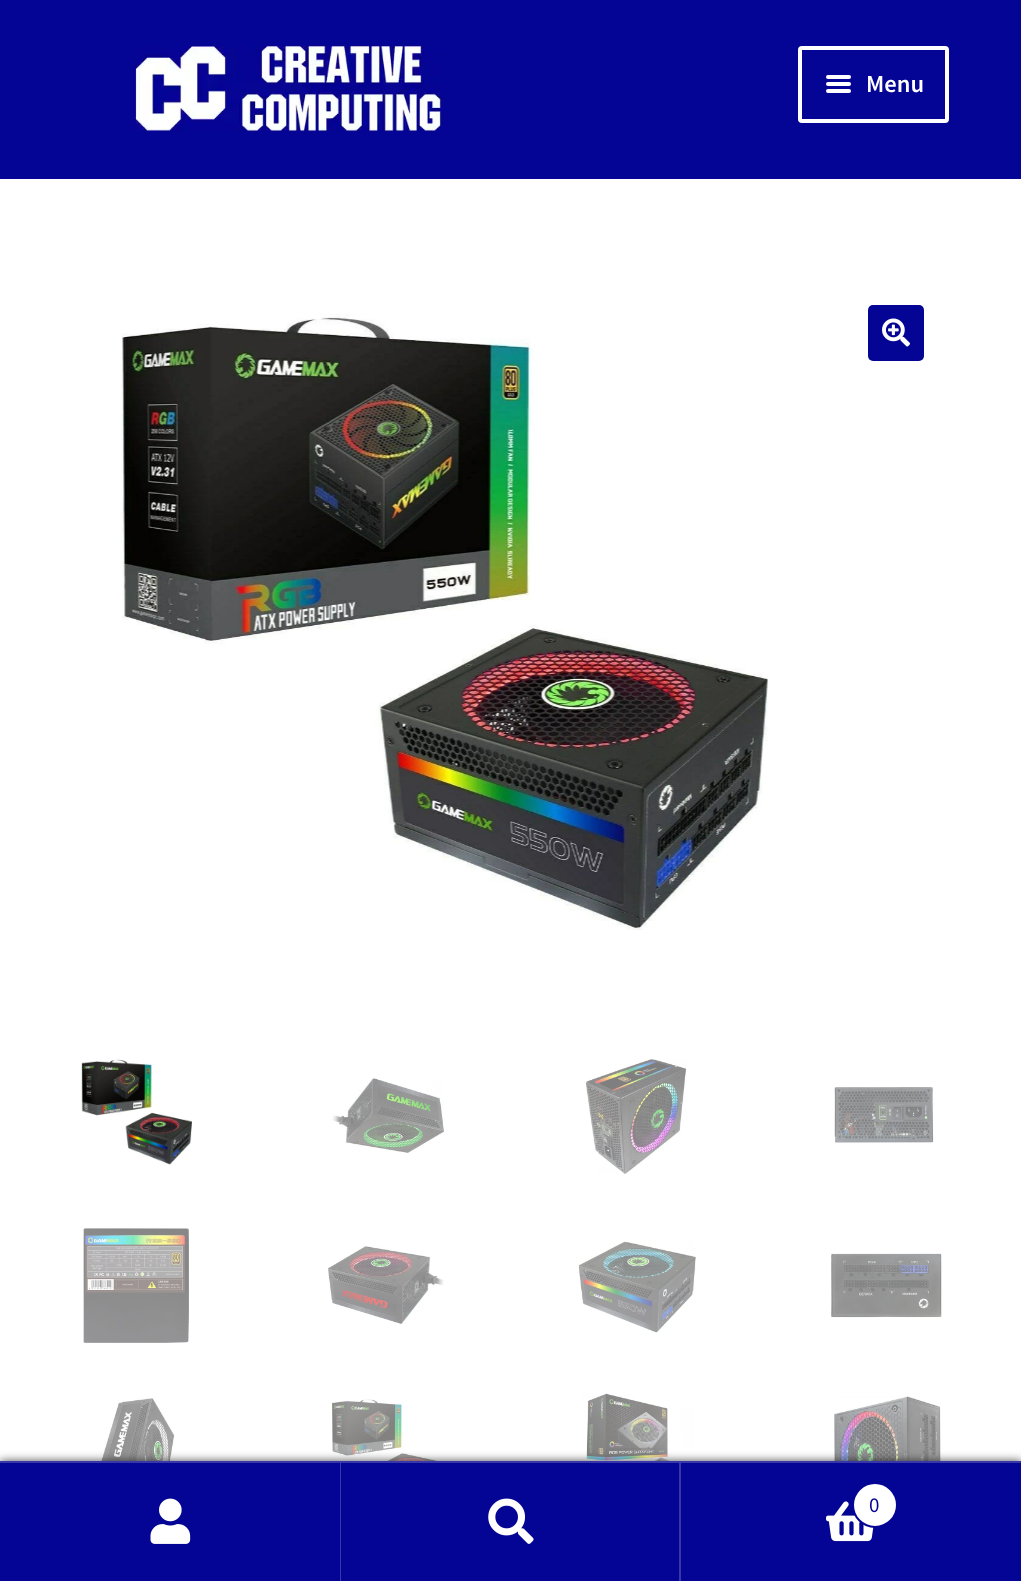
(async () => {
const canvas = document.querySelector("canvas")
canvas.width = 1021
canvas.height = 1581
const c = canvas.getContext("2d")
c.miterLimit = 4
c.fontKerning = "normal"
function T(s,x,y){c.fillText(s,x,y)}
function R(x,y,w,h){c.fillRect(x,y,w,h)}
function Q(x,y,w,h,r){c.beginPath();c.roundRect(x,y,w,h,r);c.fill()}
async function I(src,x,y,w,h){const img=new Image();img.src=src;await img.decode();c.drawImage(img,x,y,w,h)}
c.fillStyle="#fff"
R(0,0,1021,1581)
c.fillStyle="#050595"
R(0,0,1021,179)
await I("1.png",133,45,308,87)
c.beginPath()
c.roundRect(800,48,147,73,2)
c.strokeStyle="#fff"
c.lineWidth=4
c.stroke()
c.fillStyle="#fff"
Q(826,75,25,4,2)
Q(826,82,25,4,2)
c.font="600 24.5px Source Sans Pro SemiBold"
T("Menu",866,92)
Q(826,89,25,4,2)
await I("2.png",121,314,648,616)
c.fillStyle="#050595"
Q(868,305,56,56,5)
await I("3.png",882,318,28,29)
await I("4.png",81,1059,111,106)
await I("5.png",332,1078,112,76)
await I("6.png",585,1059,102,115)
await I("7.png",834,1087,100,56)
await I("8.png",83,1228,106,115)
await I("9.png",328,1246,116,78)
await I("10.png",578,1241,118,92)
await I("11.png",831,1253,111,65)
await I("12.png",98,1398,77,63)
await I("13.png",332,1399,111,62)
await I("14.png",579,1393,115,68)
await I("15.png",834,1396,107,65)
c.fillStyle="#000000b3"
c.filter="blur(5px)"
c.beginPath()
c.rect(0,1461,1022,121)
c.fill()
c.filter="none"
c.fillStyle="#3737aa"
R(0,1461,1021,2)
c.fillStyle="#050595"
R(0,1463,679,118)
c.fillStyle="#ffffff33"
R(340,1463,1,118)
await I("16.png",150,1498,41,46)
c.fillStyle="#3737aa"
R(679,1463,2,118)
await I("17.png",488,1498,46,46)
c.fillStyle="#050595"
R(681,1463,340,118)
await I("18.png",826,1501,48,41)
c.fillStyle="#fff"
c.beginPath()
c.arc(875,1505,22,0,7)
c.fill()
c.strokeStyle="#050595"
c.lineWidth=2
c.stroke()
c.font="21px Source Sans Pro"
c.fillStyle="#050595"
T("0",869,1512)
})()
